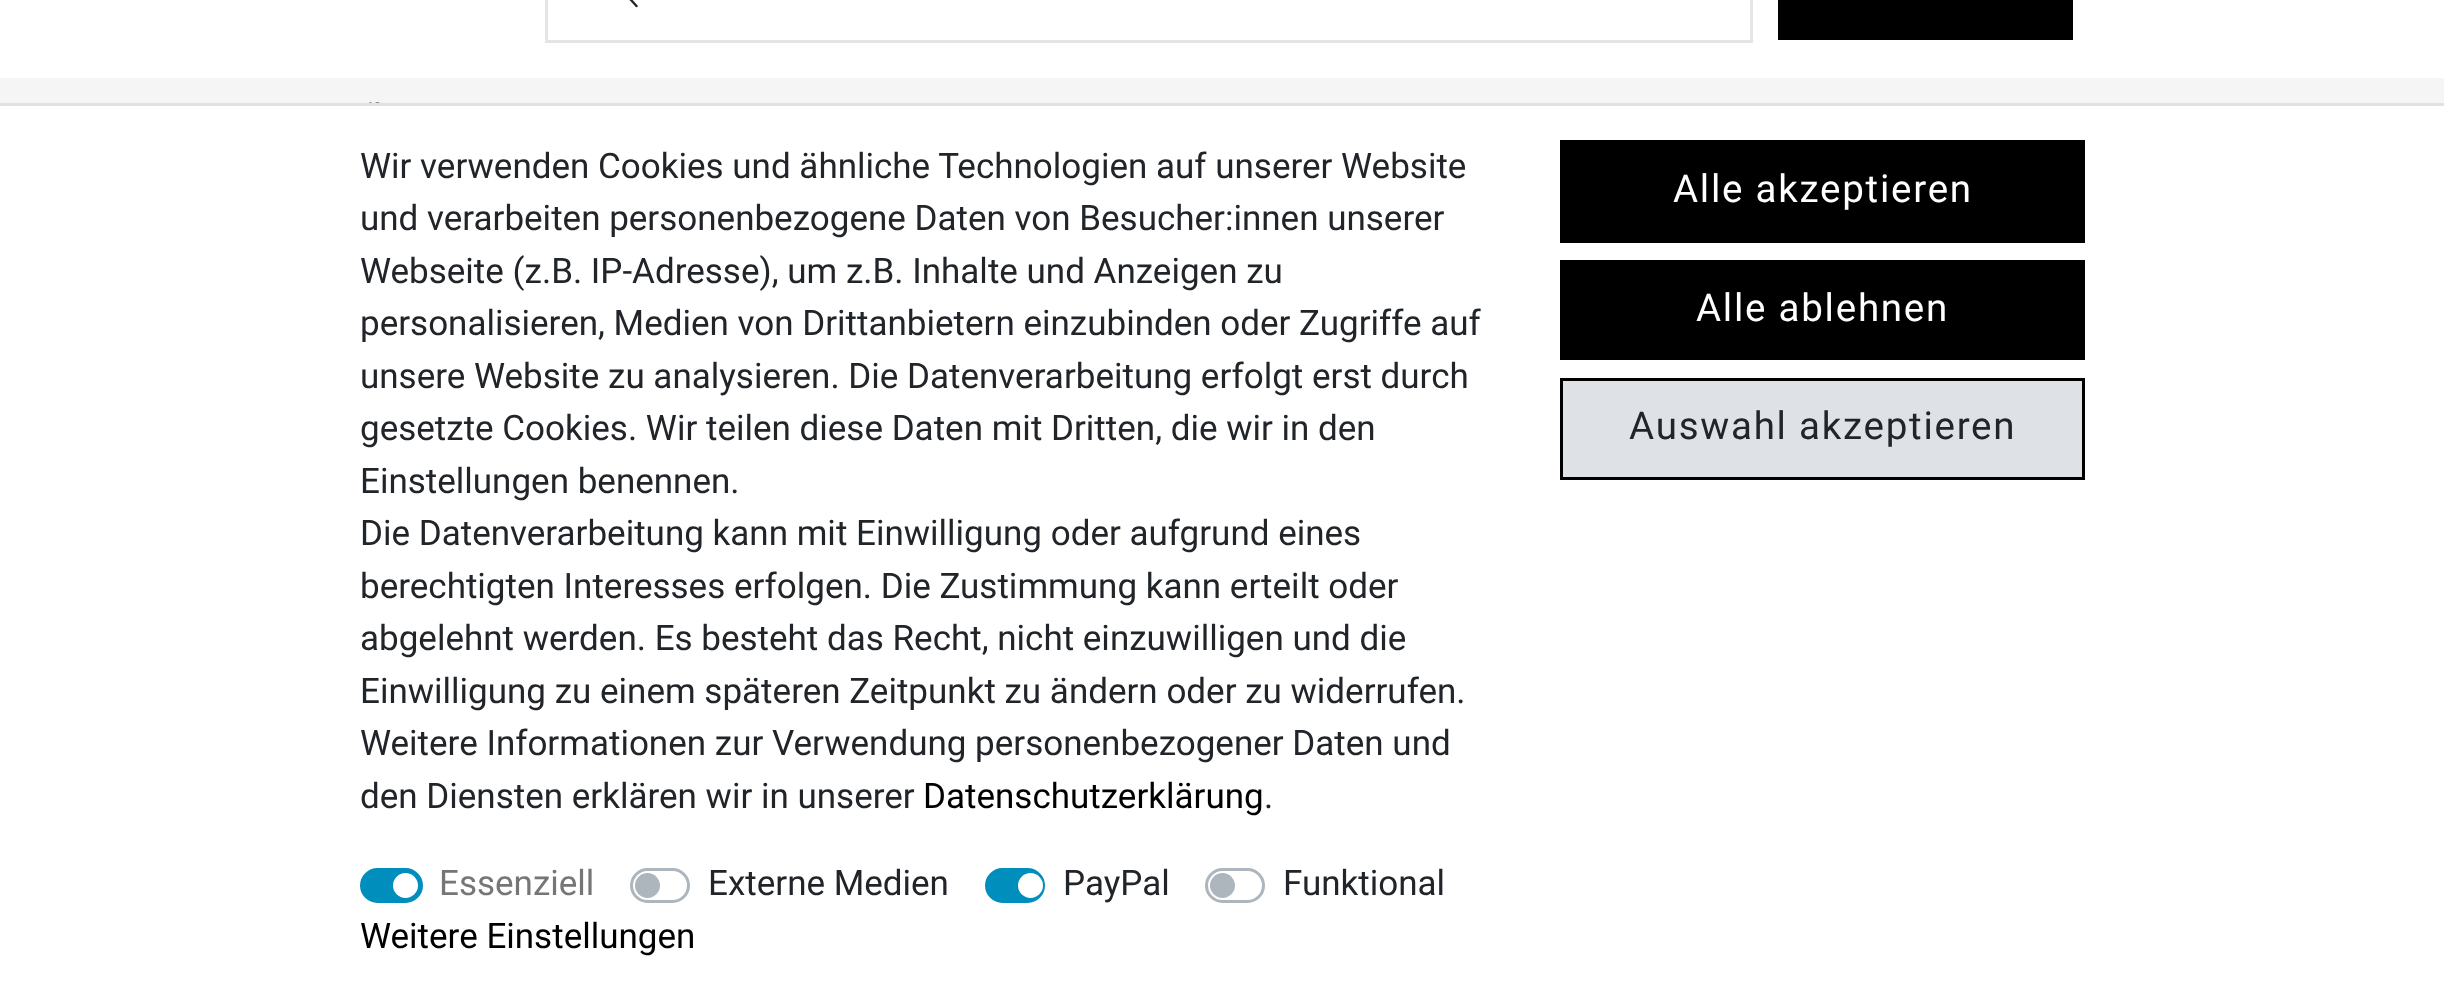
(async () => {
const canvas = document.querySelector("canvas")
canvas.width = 2444
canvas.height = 997
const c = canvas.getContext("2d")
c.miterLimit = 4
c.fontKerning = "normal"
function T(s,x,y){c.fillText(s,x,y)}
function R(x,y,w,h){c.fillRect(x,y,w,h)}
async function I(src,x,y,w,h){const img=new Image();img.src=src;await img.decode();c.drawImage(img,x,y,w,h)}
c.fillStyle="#f5f5f5"
R(0,0,2444,997)
c.fillStyle="#fff"
R(0,0,2444,78)
c.strokeStyle="#e5e5e5"
c.lineWidth=3
c.strokeRect(546.5,-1.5,1205,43)
await I("1.png",629,0,9,8)
c.fillStyle="#000"
R(1778,0,295,40)
await I("2.png",369,102,11,1)
c.fillStyle="#fff"
R(0,106,2444,891)
c.fillStyle="#dee2e6"
R(0,103,2444,3)
c.font="35px Roboto"
c.fillStyle="#212529"
T("Wir verwenden Cookies und ähnliche Technologien auf unserer Website",360,178)
T("und verarbeiten personenbezogene Daten von Besucher:innen unserer",360,230)
T("Webseite (z.B. IP-Adresse), um z.B. Inhalte und Anzeigen zu",360,283)
T("personalisieren, Medien von Drittanbietern einzubinden oder Zugriffe auf",360,335)
T("unsere Website zu analysieren. Die Datenverarbeitung erfolgt erst durch",360,388)
T("gesetzte Cookies. Wir teilen diese Daten mit Dritten, die wir in den",360,440)
T("Einstellungen benennen.",360,493)
T("Die Datenverarbeitung kann mit Einwilligung oder aufgrund eines",360,545)
T("berechtigten Interesses erfolgen. Die Zustimmung kann erteilt oder",360,598)
T("abgelehnt werden. Es besteht das Recht, nicht einzuwilligen und die",360,650)
T("Einwilligung zu einem späteren Zeitpunkt zu ändern oder zu widerrufen.",360,703)
T("Weitere Informationen zur Verwendung personenbezogener Daten und",360,755)
T("den Diensten erklären wir in unserer",360,808)
c.fillStyle="#000"
T("Datenschutzerklärung",923,808)
c.fillStyle="#212529"
T(".",1264,808)
c.fillStyle="#008ebd"
c.beginPath()
c.roundRect(361.5,869.5,60,32,16)
c.fill()
c.strokeStyle="#008ebd"
c.stroke()
c.fillStyle="#767676"
T("Essenziell",439,895)
c.fillStyle="#fff"
c.beginPath()
c.arc(405.5,885.5,12.5,0,7)
c.fill()
c.beginPath()
c.roundRect(631.5,869.5,57,32,16)
c.strokeStyle="#adb5bd"
c.stroke()
c.fillStyle="#212529"
T("Externe Medien",708,895)
c.fillStyle="#adb5bd"
c.beginPath()
c.arc(647.5,885.5,12.5,0,7)
c.fill()
c.fillStyle="#008ebd"
c.beginPath()
c.roundRect(986.5,869.5,57,32,16)
c.fill()
c.strokeStyle="#008ebd"
c.stroke()
c.fillStyle="#212529"
T("PayPal",1063,895)
c.fillStyle="#fff"
c.beginPath()
c.arc(1030.5,885.5,12.5,0,7)
c.fill()
c.beginPath()
c.roundRect(1206.5,869.5,57,32,16)
c.strokeStyle="#adb5bd"
c.stroke()
c.fillStyle="#212529"
T("Funktional",1283,895)
c.fillStyle="#adb5bd"
c.beginPath()
c.arc(1222.5,885.5,12.5,0,7)
c.fill()
c.fillStyle="#000"
T("Weitere Einstellungen",360,948)
R(1560,140,525,103)
c.letterSpacing="1.75px"
c.font="38.5px Roboto"
c.fillStyle="#fff"
T("Alle akzeptieren",1673,202)
c.fillStyle="#000"
R(1560,260,525,100)
c.fillStyle="#fff"
T("Alle ablehnen",1696,321)
c.fillStyle="#dee2e6"
c.beginPath()
c.rect(1561.5,379.5,522,99)
c.fill()
c.strokeStyle="#000"
c.stroke()
c.fillStyle="#212529"
T("Auswahl akzeptieren",1629,439)
})()
